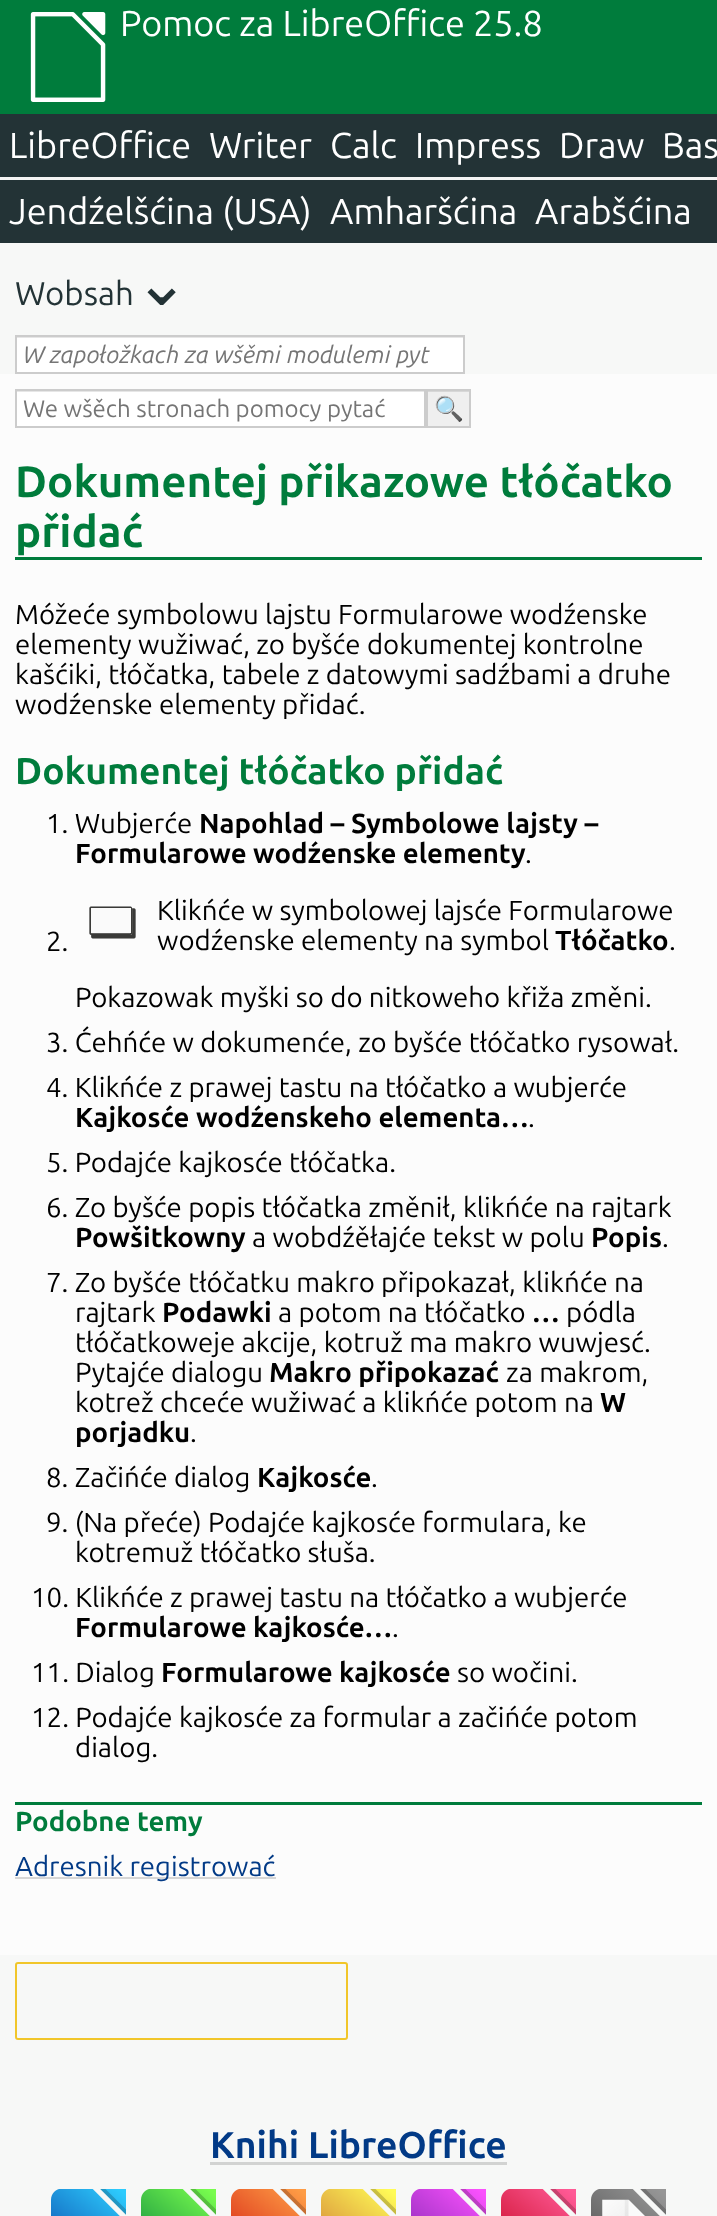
(async () => {
const canvas = document.querySelector("canvas")
canvas.width = 717
canvas.height = 2216
const c = canvas.getContext("2d")
c.miterLimit = 4
c.fontKerning = "normal"
function T(s,x,y){c.fillText(s,x,y)}
function R(x,y,w,h){c.fillRect(x,y,w,h)}
async function I(src,x,y,w,h){const img=new Image();img.src=src;await img.decode();c.drawImage(img,x,y,w,h)}
c.fillStyle="#f7f8f7"
R(0,0,717,2216)
c.fillStyle="#007c3c"
R(0,0,717,114)
await I("1.png",30,12,76,90)
c.font="36px Ubuntu"
c.fillStyle="#fff"
T("Pomoc za LibreOffice 25.8",120,36)
c.fillStyle="#233336"
R(0,114,717,63)
c.fillStyle="#f3f3f3"
R(0,177,717,3)
c.fillStyle="#fff"
T("LibreOffice",9,158)
T("Writer",209,158)
T("Calc",330,158)
T("Impress",415,158)
T("Draw",559,158)
T("Bas",662,158)
c.fillStyle="#233336"
R(0,180,717,63)
c.fillStyle="#fff"
T("Jendźelšćina (USA)",9,224)
T("Amharšćina",330,224)
T("Arabšćina",535,224)
c.font="33px Ubuntu"
c.fillStyle="#233336"
T("Wobsah",15,305)
c.font="66px DejaVu Sans"
T("⌄",134,305)
c.fillStyle="#fff"
R(17,338,446,34)
c.fillStyle="#e6e6e6"
R(17,337,447,1)
c.strokeStyle="#ccc"
c.lineWidth=2
c.strokeRect(16,336,448,37)
c.font="italic 24px Ubuntu"
c.fillStyle="#757575"
T("W zapołožkach za wšěmi modulemi pyt",23,363)
c.fillStyle="#fcfcfc"
R(0,374,717,1581)
c.fillStyle="#fff"
R(17,392,407,34)
c.fillStyle="#e6e6e6"
R(17,391,408,1)
c.strokeRect(16,390,409,37)
c.font="24px Ubuntu"
c.fillStyle="#757575"
T("We wšěch stronach pomocy pytać",23,417)
c.fillStyle="#efefef"
R(428,392,41,34)
c.fillStyle="#d7d7d7"
R(428,391,42,1)
c.strokeRect(427,390,43,37)
c.font="24px Noto Color Emoji"
c.fillStyle="#000"
T("🔍",434,417)
c.fillStyle="#007c3c"
R(15,557,687,3)
c.font="bold 43.9px Ubuntu"
T("Dokumentej přikazowe tłóčatko",15,497)
T("přidać",15,547)
c.font="27.6px Ubuntu"
c.fillStyle="#000"
T("Móžeće symbolowu lajstu Formularowe wodźenske",15,624)
T("elementy wužiwać, zo byšće dokumentej kontrolne",15,654)
T("kašćiki, tłóčatka, tabele z datowymi sadźbami a druhe",15,684)
T("wodźenske elementy přidać.",15,714)
c.font="bold 37.25px Ubuntu"
c.fillStyle="#007c3c"
T("Dokumentej tłóčatko přidać",15,784)
c.font="27.6px Ubuntu"
c.fillStyle="#000"
T("1. Wubjerće",46,833)
c.font="bold 27.6px Ubuntu"
T("Napohlad – Symbolowe lajsty –",199,833)
T("Formularowe wodźenske elementy",75,863)
c.font="27.6px Ubuntu"
T(".",525,863)
T("2.",46,951)
await I("2.png",89,906,47,33)
T("Klikńće w symbolowej lajsće Formularowe",157,920)
T("wodźenske elementy na symbol",157,950)
c.font="bold 27.6px Ubuntu"
T("Tłóčatko",555,950)
c.font="27.6px Ubuntu"
T(".",669,950)
T("Pokazowak myški so do nitkoweho křiža změni.",75,1007)
T("3. Ćehńće w dokumenće, zo byšće tłóčatko rysował.",46,1052)
T("4. Klikńće z prawej tastu na tłóčatko a wubjerće",46,1097)
c.font="bold 27.6px Ubuntu"
T("Kajkosće wodźenskeho elementa…",75,1127)
c.font="27.6px Ubuntu"
T(".",528,1127)
T("5. Podajće kajkosće tłóčatka.",46,1172)
T("6. Zo byšće popis tłóčatka změnił, klikńće na rajtark",46,1217)
c.font="bold 27.6px Ubuntu"
T("Powšitkowny",75,1247)
c.font="27.6px Ubuntu"
T("a wobdźěłajće tekst w polu",252,1247)
c.font="bold 27.6px Ubuntu"
T("Popis",591,1247)
c.font="27.6px Ubuntu"
T(".",662,1247)
T("7. Zo byšće tłóčatku makro připokazał, klikńće na",46,1292)
T("rajtark",75,1322)
c.font="bold 27.6px Ubuntu"
T("Podawki",162,1322)
c.font="27.6px Ubuntu"
T("a potom na tłóčatko",278,1322)
c.font="bold 27.6px Ubuntu"
T("…",532,1322)
c.font="27.6px Ubuntu"
T("pódla",566,1322)
T("tłóčatkoweje akcije, kotruž ma makro wuwjesć.",75,1352)
T("Pytajće dialogu",75,1382)
c.font="bold 27.6px Ubuntu"
T("Makro připokazać",269,1382)
c.font="27.6px Ubuntu"
T("za makrom,",506,1382)
T("kotrež chceće wužiwać a klikńće potom na",75,1412)
c.font="bold 27.6px Ubuntu"
T("W",600,1412)
T("porjadku",75,1442)
c.font="27.6px Ubuntu"
T(".",190,1442)
T("8. Začińće dialog",46,1487)
c.font="bold 27.6px Ubuntu"
T("Kajkosće",257,1487)
c.font="27.6px Ubuntu"
T(".",371,1487)
T("9. (Na přeće) Podajće kajkosće formulara, ke",46,1532)
T("kotremuž tłóčatko słuša.",75,1562)
T("10. Klikńće z prawej tastu na tłóčatko a wubjerće",31,1607)
c.font="bold 27.6px Ubuntu"
T("Formularowe kajkosće…",75,1637)
c.font="27.6px Ubuntu"
T(".",392,1637)
T("11. Dialog",31,1682)
c.font="bold 27.6px Ubuntu"
T("Formularowe kajkosće",161,1682)
c.font="27.6px Ubuntu"
T("so wočini.",457,1682)
T("12. Podajće kajkosće za formular a začińće potom",31,1727)
T("dialog.",75,1757)
c.fillStyle="#007c3c"
R(15,1802,687,3)
c.font="bold 27.6px Ubuntu"
T("Podobne temy",15,1831)
c.fillStyle="#d6d6d6"
R(15,1877,261,2)
c.font="27.6px Ubuntu"
c.fillStyle="#023a86"
T("Adresnik registrować",15,1876)
c.beginPath()
c.roundRect(16,1963,331,76,2)
c.strokeStyle="#f1c62a"
c.stroke()
c.font="bold 37.25px Ubuntu"
T("Knihi LibreOffice",210,2158)
c.fillStyle="#d2d3d2"
R(210,2162,297,3)
await I("3.png",51,2189,75,27)
await I("4.png",141,2189,75,27)
await I("5.png",231,2189,75,27)
await I("6.png",321,2189,75,27)
await I("7.png",411,2189,75,27)
await I("8.png",501,2189,75,27)
await I("9.png",591,2189,75,27)
})()
